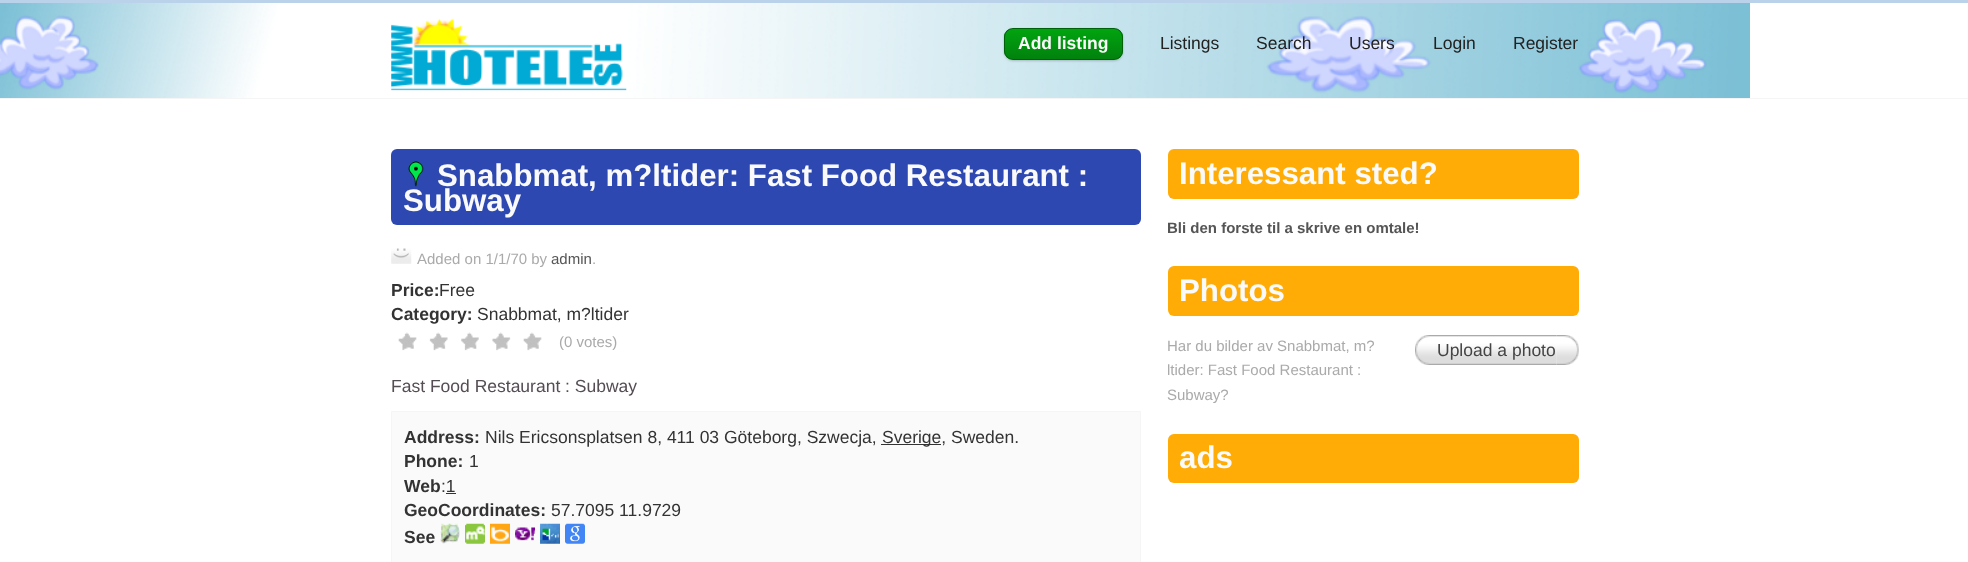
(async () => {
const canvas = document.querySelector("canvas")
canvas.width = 1968
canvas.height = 562
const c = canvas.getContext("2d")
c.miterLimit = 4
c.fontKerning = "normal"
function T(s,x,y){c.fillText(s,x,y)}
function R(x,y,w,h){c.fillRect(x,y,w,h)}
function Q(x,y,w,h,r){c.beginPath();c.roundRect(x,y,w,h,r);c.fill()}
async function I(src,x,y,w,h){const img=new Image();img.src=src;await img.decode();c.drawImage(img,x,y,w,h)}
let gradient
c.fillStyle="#fff"
R(0,0,1968,562)
await I("1.png",0,3,1750,95)
c.fillStyle="#bad3ea"
R(0,0,1968,3)
c.fillStyle="#f5f5f5"
R(0,98,1968,1)
await I("2.png",391,18,236,73)
c.fillStyle="#00000033"
c.filter="blur(1px)"
c.beginPath()
c.roundRect(1004,29,119,32,9)
c.fill()
c.filter="none"
c.save()
c.beginPath()
c.roundRect(1004,28,119,32,9)
c.clip()
gradient = c.createLinearGradient(1005,29,1005,59)
gradient.addColorStop(0,"#01a410")
gradient.addColorStop(1,"#01820d")
c.fillStyle = gradient
R(1004,29,119,30)
c.restore()
c.beginPath()
c.roundRect(1004.5,28.5,118,31,8.5)
c.strokeStyle="#01600a"
c.stroke()
c.font="bold 17.5px Liberation Sans"
c.fillStyle="#fafafa"
T("Add listing",1018,49)
c.font="17.5px Liberation Sans"
c.fillStyle="#222"
T("Listings",1160,49)
T("Search",1256,49)
T("Users",1349,49)
T("Login",1433,49)
T("Register",1513,49)
c.fillStyle="#2e48b2"
Q(391,149,750,76,6)
await I("3.png",408,161,16,26)
c.font="bold 31.25px Liberation Sans"
c.fillStyle="#fafafa"
T("Snabbmat, m?ltider: Fast Food Restaurant :",437,186)
T("Subway",403,211)
await I("4.png",391,248,21,16)
c.font="15px Liberation Sans"
c.fillStyle="#aaa"
T("Added on 1/1/70 by",417,264)
c.fillStyle="#555"
T("admin",551,264)
c.fillStyle="#aaa"
T(".",592,264)
c.font="bold 17.5px Liberation Sans"
c.fillStyle="#333"
T("Price:",391,296)
c.font="17.5px Liberation Sans"
T("Free",439,296)
c.font="bold 17.5px Liberation Sans"
T("Category:",391,320)
c.font="17.5px Liberation Sans"
T("Snabbmat, m?ltider",477,320)
await I("5.png",398,332,144,19)
c.font="15px Liberation Sans"
c.fillStyle="#aaa"
T("(0 votes)",559,347)
c.font="17.5px Liberation Sans"
c.fillStyle="#544d54"
T("Fast Food Restaurant : Subway",391,392)
c.fillStyle="#fafafa"
c.beginPath()
c.rect(391.5,411.5,749,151)
c.fill()
c.strokeStyle="#f5f5f5"
c.stroke()
c.font="bold 17.5px Liberation Sans"
c.fillStyle="#333"
T("Address:",404,443)
c.font="17.5px Liberation Sans"
T("Nils Ericsonsplatsen 8, 411 03 Göteborg, Szwecja,",485,443)
R(881,444,60,1)
T("Sverige, Sweden.",882,443)
c.font="bold 17.5px Liberation Sans"
T("Phone:",404,467)
c.font="17.5px Liberation Sans"
T("1",469,467)
c.font="bold 17.5px Liberation Sans"
T("Web",404,492)
c.font="17.5px Liberation Sans"
T(":1",441,492)
R(446,493,10,1)
c.font="bold 17.5px Liberation Sans"
T("GeoCoordinates:",404,516)
c.font="17.5px Liberation Sans"
T("57.7095 11.9729",551,516)
c.font="bold 17.5px Liberation Sans"
T("See",404,543)
await I("6.png",440,523,20,21)
await I("7.png",465,523,20,21)
await I("8.png",490,523,20,21)
await I("9.png",515,527,20,14)
await I("10.png",540,523,20,21)
await I("11.png",565,523,20,21)
c.fillStyle="#ffac06"
Q(1168,149,411,50,6)
c.font="bold 31.25px Liberation Sans"
c.fillStyle="#fafafa"
T("Interessant sted?",1179,184)
c.save()
c.beginPath()
c.rect(1168,218,411,30)
c.clip()
c.font="bold 15px Liberation Sans"
c.fillStyle="#555"
T("Bli den forste til a skrive en omtale!",1167,233)
c.restore()
c.fillStyle="#ffac06"
Q(1168,266,411,50,6)
c.fillStyle="#fafafa"
T("Photos",1179,301)
c.font="15px Liberation Sans"
c.fillStyle="#aaa"
T("Har du bilder av Snabbmat, m?",1167,351)
c.save()
c.beginPath()
c.rect(1168,335,411,80)
c.clip()
T("ltider: Fast Food Restaurant :",1167,375)
c.restore()
T("Subway?",1167,400)
await I("12.png",1556,335,23,30)
await I("13.png",1415,335,142,30)
c.font="17.5px Liberation Sans"
c.fillStyle="#444"
T("Upload a photo",1437,356)
c.fillStyle="#ffac06"
Q(1168,434,411,49,6)
c.font="bold 31.25px Liberation Sans"
c.fillStyle="#fafafa"
T("ads",1179,468)
})()
